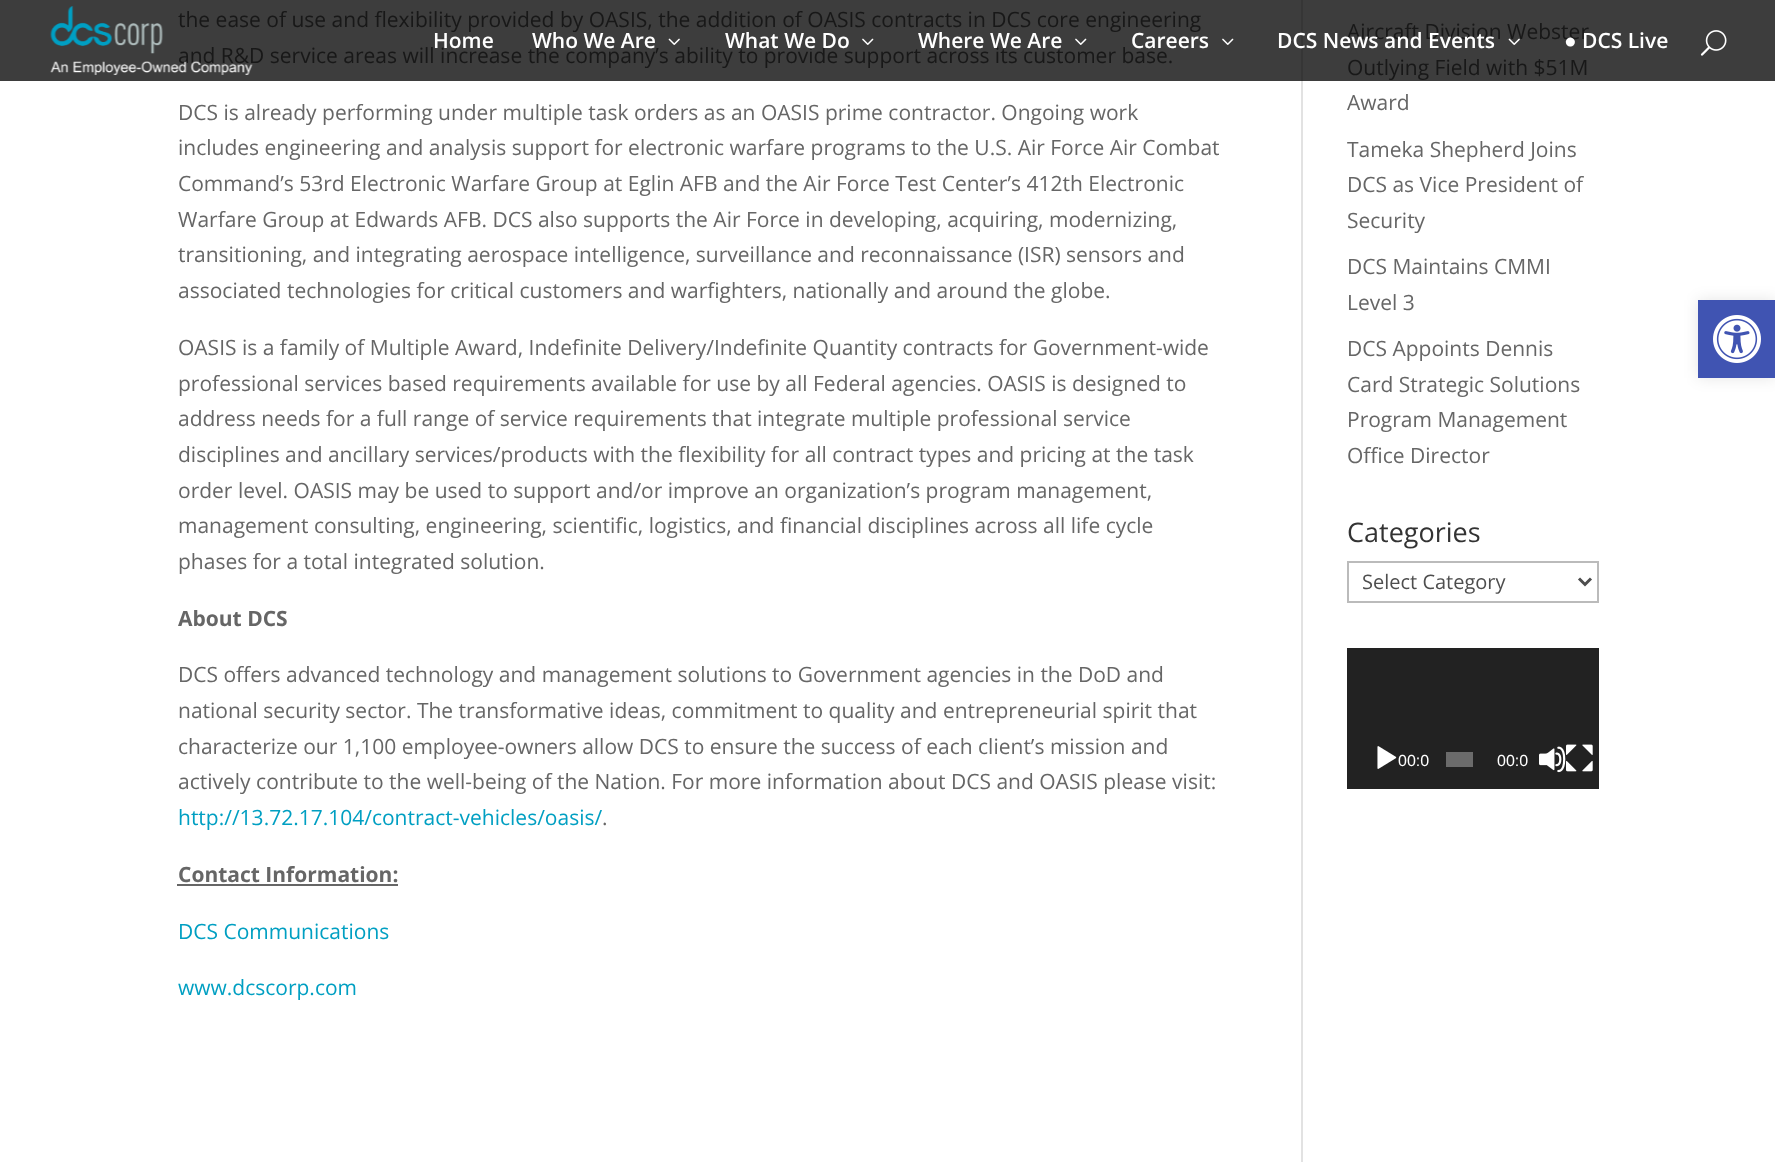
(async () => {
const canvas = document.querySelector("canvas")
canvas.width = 1775
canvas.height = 1162
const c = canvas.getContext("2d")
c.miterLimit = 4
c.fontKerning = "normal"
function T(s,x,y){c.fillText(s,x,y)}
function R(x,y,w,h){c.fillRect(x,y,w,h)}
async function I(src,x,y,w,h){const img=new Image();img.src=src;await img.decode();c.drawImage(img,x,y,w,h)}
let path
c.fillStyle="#fff"
R(0,0,1775,1162)
c.fillStyle="#3d3d3d"
R(0,0,1775,81)
c.fillStyle="#e2e2e2"
R(1301,81,2,1081)
c.fillStyle="#363636"
R(1301,0,2,81)
c.font="21px Open Sans"
c.fillStyle="#181818"
T("the ease of use and flexibility provided by OASIS, the addition of OASIS contracts in DCS core engineering",178,27)
T("and R&D service areas will increase the company’s ability to provide support across its customer base.",178,63)
c.fillStyle="#666"
T("DCS is already performing under multiple task orders as an OASIS prime contractor. Ongoing work",178,120)
T("includes engineering and analysis support for electronic warfare programs to the U.S. Air Force Air Combat",178,155)
T("Command’s 53rd Electronic Warfare Group at Eglin AFB and the Air Force Test Center’s 412th Electronic",178,191)
T("Warfare Group at Edwards AFB. DCS also supports the Air Force in developing, acquiring, modernizing,",178,227)
T("transitioning, and integrating aerospace intelligence, surveillance and reconnaissance (ISR) sensors and",178,262)
T("associated technologies for critical customers and warfighters, nationally and around the globe.",178,298)
T("OASIS is a family of Multiple Award, Indefinite Delivery/Indefinite Quantity contracts for Government-wide",178,355)
T("professional services based requirements available for use by all Federal agencies. OASIS is designed to",178,391)
T("address needs for a full range of service requirements that integrate multiple professional service",178,426)
T("disciplines and ancillary services/products with the flexibility for all contract types and pricing at the task",178,462)
T("order level. OASIS may be used to support and/or improve an organization’s program management,",178,498)
T("management consulting, engineering, scientific, logistics, and financial disciplines across all life cycle",178,533)
T("phases for a total integrated solution.",178,569)
c.font="bold 21px Open Sans"
T("About DCS",178,626)
c.font="21px Open Sans"
T("DCS offers advanced technology and management solutions to Government agencies in the DoD and",178,682)
T("national security sector. The transformative ideas, commitment to quality and entrepreneurial spirit that",178,718)
T("characterize our 1,100 employee-owners allow DCS to ensure the success of each client’s mission and",178,754)
T("actively contribute to the well-being of the Nation. For more information about DCS and OASIS please visit:",178,789)
c.fillStyle="#009fc2"
T("http://13.72.17.104/contract-vehicles/oasis/",178,825)
c.fillStyle="#666"
T(".",602,825)
c.font="bold 21px Open Sans"
T("Contact Information:",178,882)
R(177,884,221,2)
c.font="21px Open Sans"
c.fillStyle="#009fc2"
T("DCS Communications",178,939)
T("www.dcscorp.com",178,995)
c.fillStyle="#181818"
T("Aircraft Division Webster",1347,39)
T("Outlying Field with $51M",1347,75)
c.fillStyle="#666"
T("Award",1347,110)
T("Tameka Shepherd Joins",1347,157)
T("DCS as Vice President of",1347,192)
T("Security",1347,228)
T("DCS Maintains CMMI",1347,274)
T("Level 3",1347,310)
T("DCS Appoints Dennis",1347,356)
T("Card Strategic Solutions",1347,392)
T("Program Management",1347,427)
T("Office Director",1347,463)
c.font="27px Open Sans"
c.fillStyle="#333"
T("Categories",1347,542)
c.strokeStyle="#bbb"
c.lineWidth=2
c.strokeRect(1348,562,250,40)
path = new Path2D("M1579 578.5l6 6l6-6")
c.strokeStyle="#4e4e4e"
c.lineWidth=3
c.stroke(path)
c.font="20px Open Sans"
c.fillStyle="#4e4e4e"
T("Select Category",1362,589)
c.fillStyle="#222"
R(1347,648,252,141)
await I("1.png",1377,746,20,23)
c.font="16px Liberation Sans"
c.fillStyle="#fff"
T("00:0",1398,766)
c.fillStyle="#6b6b6b"
R(1446,752,27,15)
c.fillStyle="#fff"
T("00:0",1497,766)
await I("2.png",1539,746,27,27)
await I("3.png",1566,744,27,28)
await I("4.png",50,6,203,69)
c.font="600 21px Open Sans"
T("Home",433,48)
T("Who We Are",532,48)
await I("5.png",668,38,12,7)
T("What We Do",725,48)
await I("6.png",862,38,12,7)
T("Where We Are",918,48)
await I("6.png",1075,38,12,7)
T("Careers",1131,48)
await I("6.png",1222,38,12,7)
T("DCS News and Events",1277,48)
await I("7.png",1508,38,12,7)
c.font="bold 21px Liberation Sans"
T("●",1564,48)
c.font="600 21px Open Sans"
T("DCS Live",1582,48)
await I("8.png",1700,30,27,26)
c.fillStyle="#0000001a"
c.filter="blur(7.5px)"
c.beginPath()
c.rect(1698,300,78,78)
c.fill()
c.filter="none"
c.fillStyle="#4054b2"
R(1698,300,77,78)
await I("9.png",1713,315,48,48)
})()
